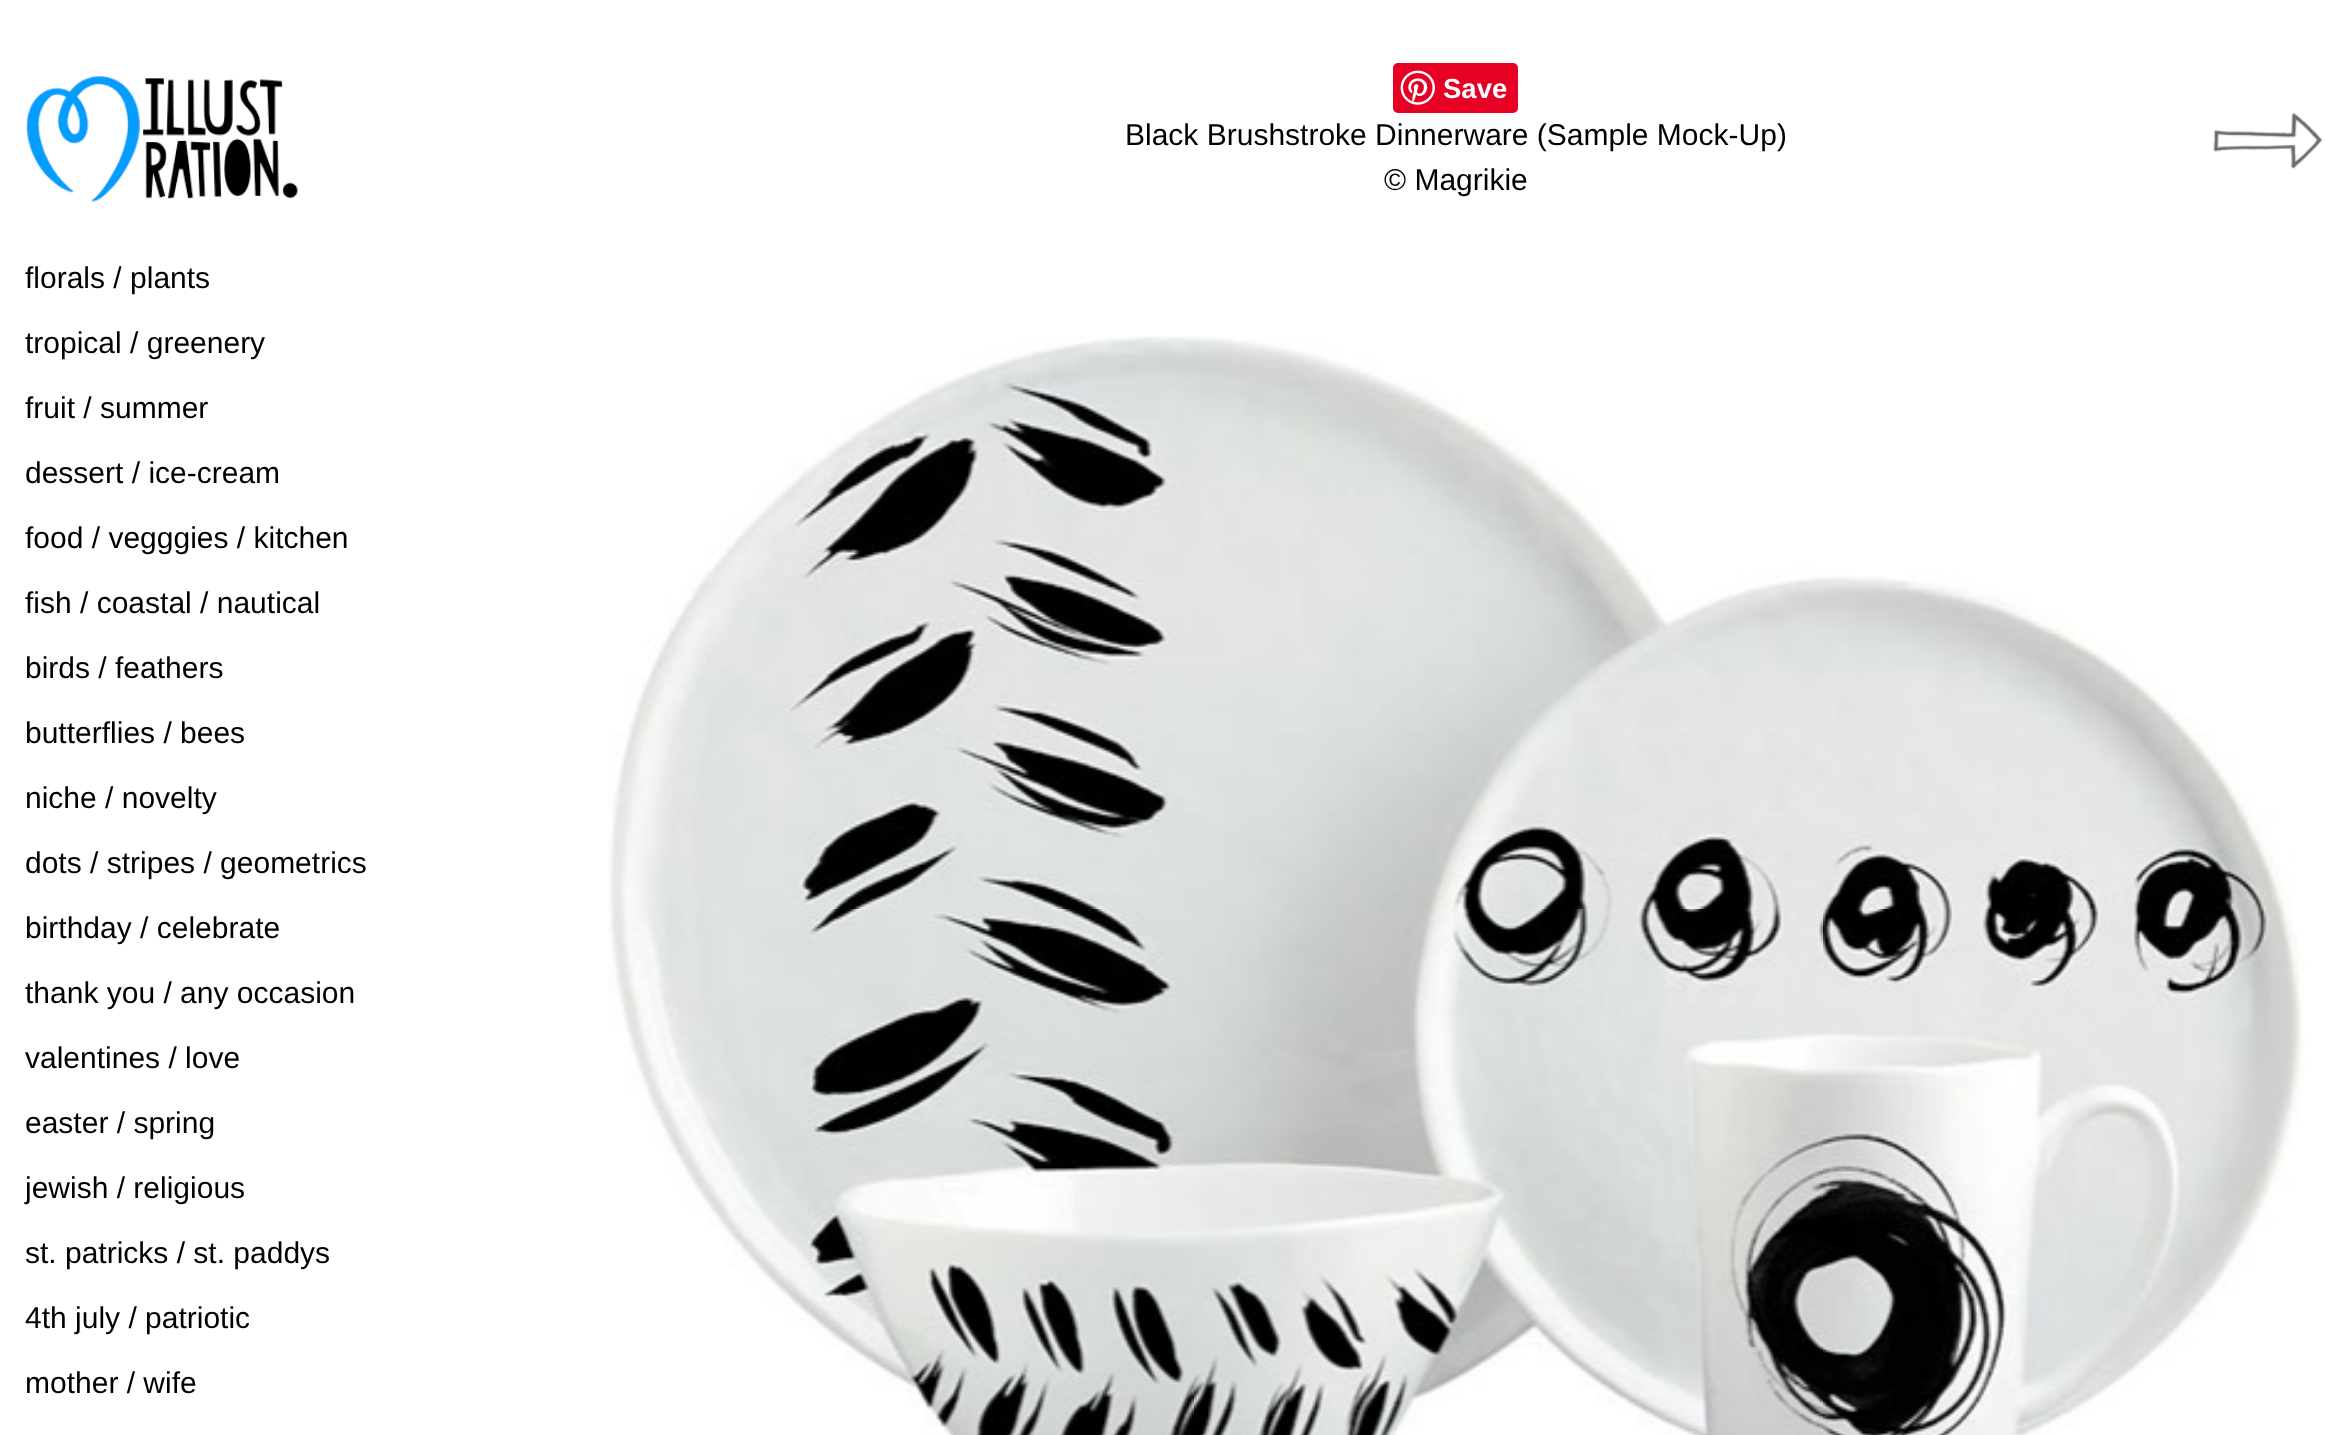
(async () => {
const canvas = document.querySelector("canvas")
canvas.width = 2346
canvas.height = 1435
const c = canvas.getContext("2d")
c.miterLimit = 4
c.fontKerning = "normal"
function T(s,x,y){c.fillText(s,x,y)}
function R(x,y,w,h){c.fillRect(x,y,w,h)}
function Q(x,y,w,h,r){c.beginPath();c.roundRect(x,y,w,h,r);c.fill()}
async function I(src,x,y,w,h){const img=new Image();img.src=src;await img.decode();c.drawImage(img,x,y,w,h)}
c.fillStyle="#fff"
R(0,0,2346,1435)
c.fillStyle="#e60023"
Q(1393,63,125,50,5)
await I("1.png",1400,70,35,35)
c.font="bold 27.5px Liberation Sans"
c.fillStyle="#fff"
T("Save",1443,98)
c.font="30px Liberation Sans"
c.fillStyle="#000"
T("Black Brushstroke Dinnerware (Sample Mock-Up)",1125,145)
T("© Magrikie",1384,190)
await I("2.png",2213,112,110,57)
await I("3.png",608,336,1697,1099)
await I("4.png",26,76,273,126)
T("florals / plants",25,288)
T("tropical / greenery",25,353)
T("fruit / summer",25,418)
T("dessert / ice-cream",25,483)
T("food / vegggies / kitchen",25,548)
T("fish / coastal / nautical",25,613)
T("birds / feathers",25,678)
T("butterflies / bees",25,743)
T("niche / novelty",25,808)
T("dots / stripes / geometrics",25,873)
T("birthday / celebrate",25,938)
T("thank you / any occasion",25,1003)
T("valentines / love",25,1068)
T("easter / spring",25,1133)
T("jewish / religious",25,1198)
T("st. patricks / st. paddys",25,1263)
T("4th july / patriotic",25,1328)
T("mother / wife",25,1393)
})()
